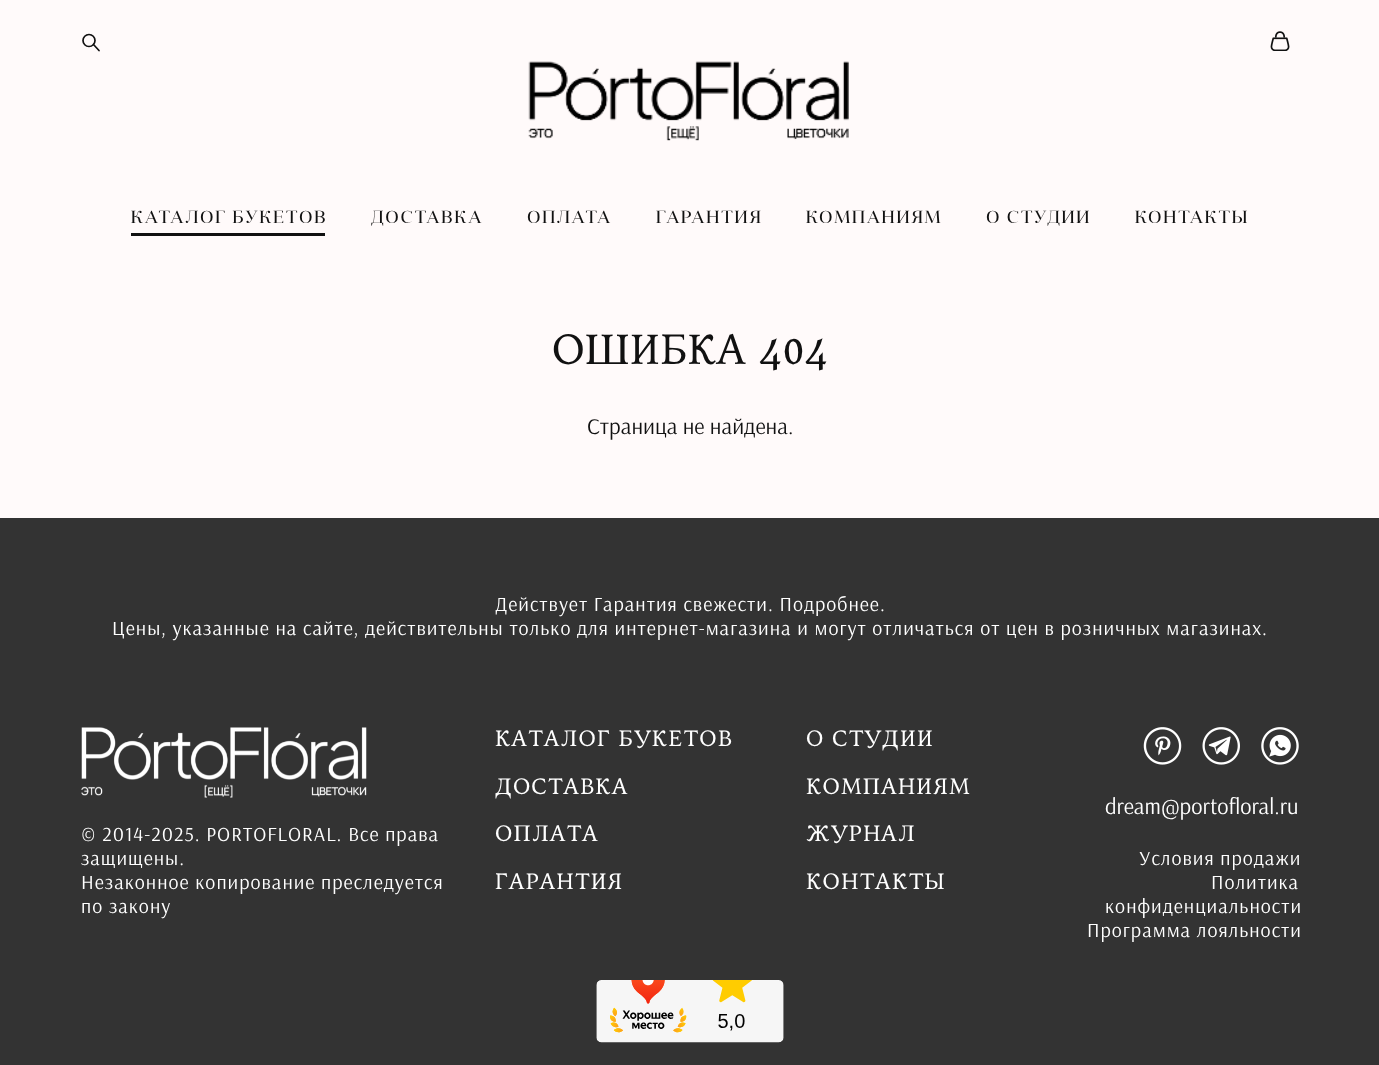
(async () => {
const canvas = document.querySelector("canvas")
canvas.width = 1379
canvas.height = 1065
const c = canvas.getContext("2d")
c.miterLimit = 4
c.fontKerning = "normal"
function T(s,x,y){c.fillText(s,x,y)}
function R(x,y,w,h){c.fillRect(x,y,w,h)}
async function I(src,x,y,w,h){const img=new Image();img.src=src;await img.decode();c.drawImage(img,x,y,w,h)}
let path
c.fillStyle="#fffafa"
R(0,0,1379,1065)
c.beginPath()
c.arc(89,40.5,6,0,7)
c.strokeStyle="#111"
c.lineWidth=1.7
c.stroke()
path = new Path2D("M93.5 44.5l5.5 6")
c.lineCap="round"
c.lineJoin="round"
c.stroke(path)
await I("1.png",1270,31,20,20)
await I("2.png",528,61,321,80)
c.letterSpacing="1.75px"
c.font="17.5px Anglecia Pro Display"
c.fillStyle="#111"
T("КАТАЛОГ БУКЕТОВ",131,223)
R(131,233,194,3)
T("ДОСТАВКА",371,223)
T("ОПЛАТА",527,223)
T("ГАРАНТИЯ",656,223)
T("КОМПАНИЯМ",806,223)
T("О СТУДИИ",986,223)
T("КОНТАКТЫ",1135,223)
c.letterSpacing="0px"
c.font="42.5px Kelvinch"
T("ОШИБКА 404",552,364)
c.font="22.5px Arsenal"
T("Страница не найдена.",587,434)
c.fillStyle="#333"
R(0,518,1379,547)
c.letterSpacing="1px"
c.font="20px Arsenal"
c.fillStyle="#fff"
T("Действует Гарантия свежести. Подробнее.",495,611)
T("Цены, указанные на сайте, действительны только для интернет-магазина и могут отличаться от цен в розничных магазинах.",112,635)
await I("3.png",81,727,286,71)
T("© 2014-2025. PORTOFLORAL. Все права",81,841)
T("защищены.",81,865)
T("Незаконное копирование преследуется",81,889)
T("по закону",81,913)
c.letterSpacing="1.1px"
c.font="22.5px Kelvinch"
T("КАТАЛОГ БУКЕТОВ",495,746)
T("ДОСТАВКА",495,794)
T("ОПЛАТА",495,841)
T("ГАРАНТИЯ",495,889)
T("О СТУДИИ",806,746)
T("КОМПАНИЯМ",806,794)
T("ЖУРНАЛ",806,841)
T("КОНТАКТЫ",806,889)
await I("4.png",1143,727,39,38)
await I("5.png",1202,727,38,38)
await I("6.png",1261,727,38,38)
c.letterSpacing="0px"
c.font="22.5px Arsenal"
T("dream@portofloral.ru",1105,814)
c.letterSpacing="1px"
c.font="20px Arsenal"
T("Условия продажи",1139,865)
T("Политика",1211,889)
T("конфиденциальности",1105,913)
T("Программа лояльности",1087,937)
await I("7.png",596,980,188,63)
})()
